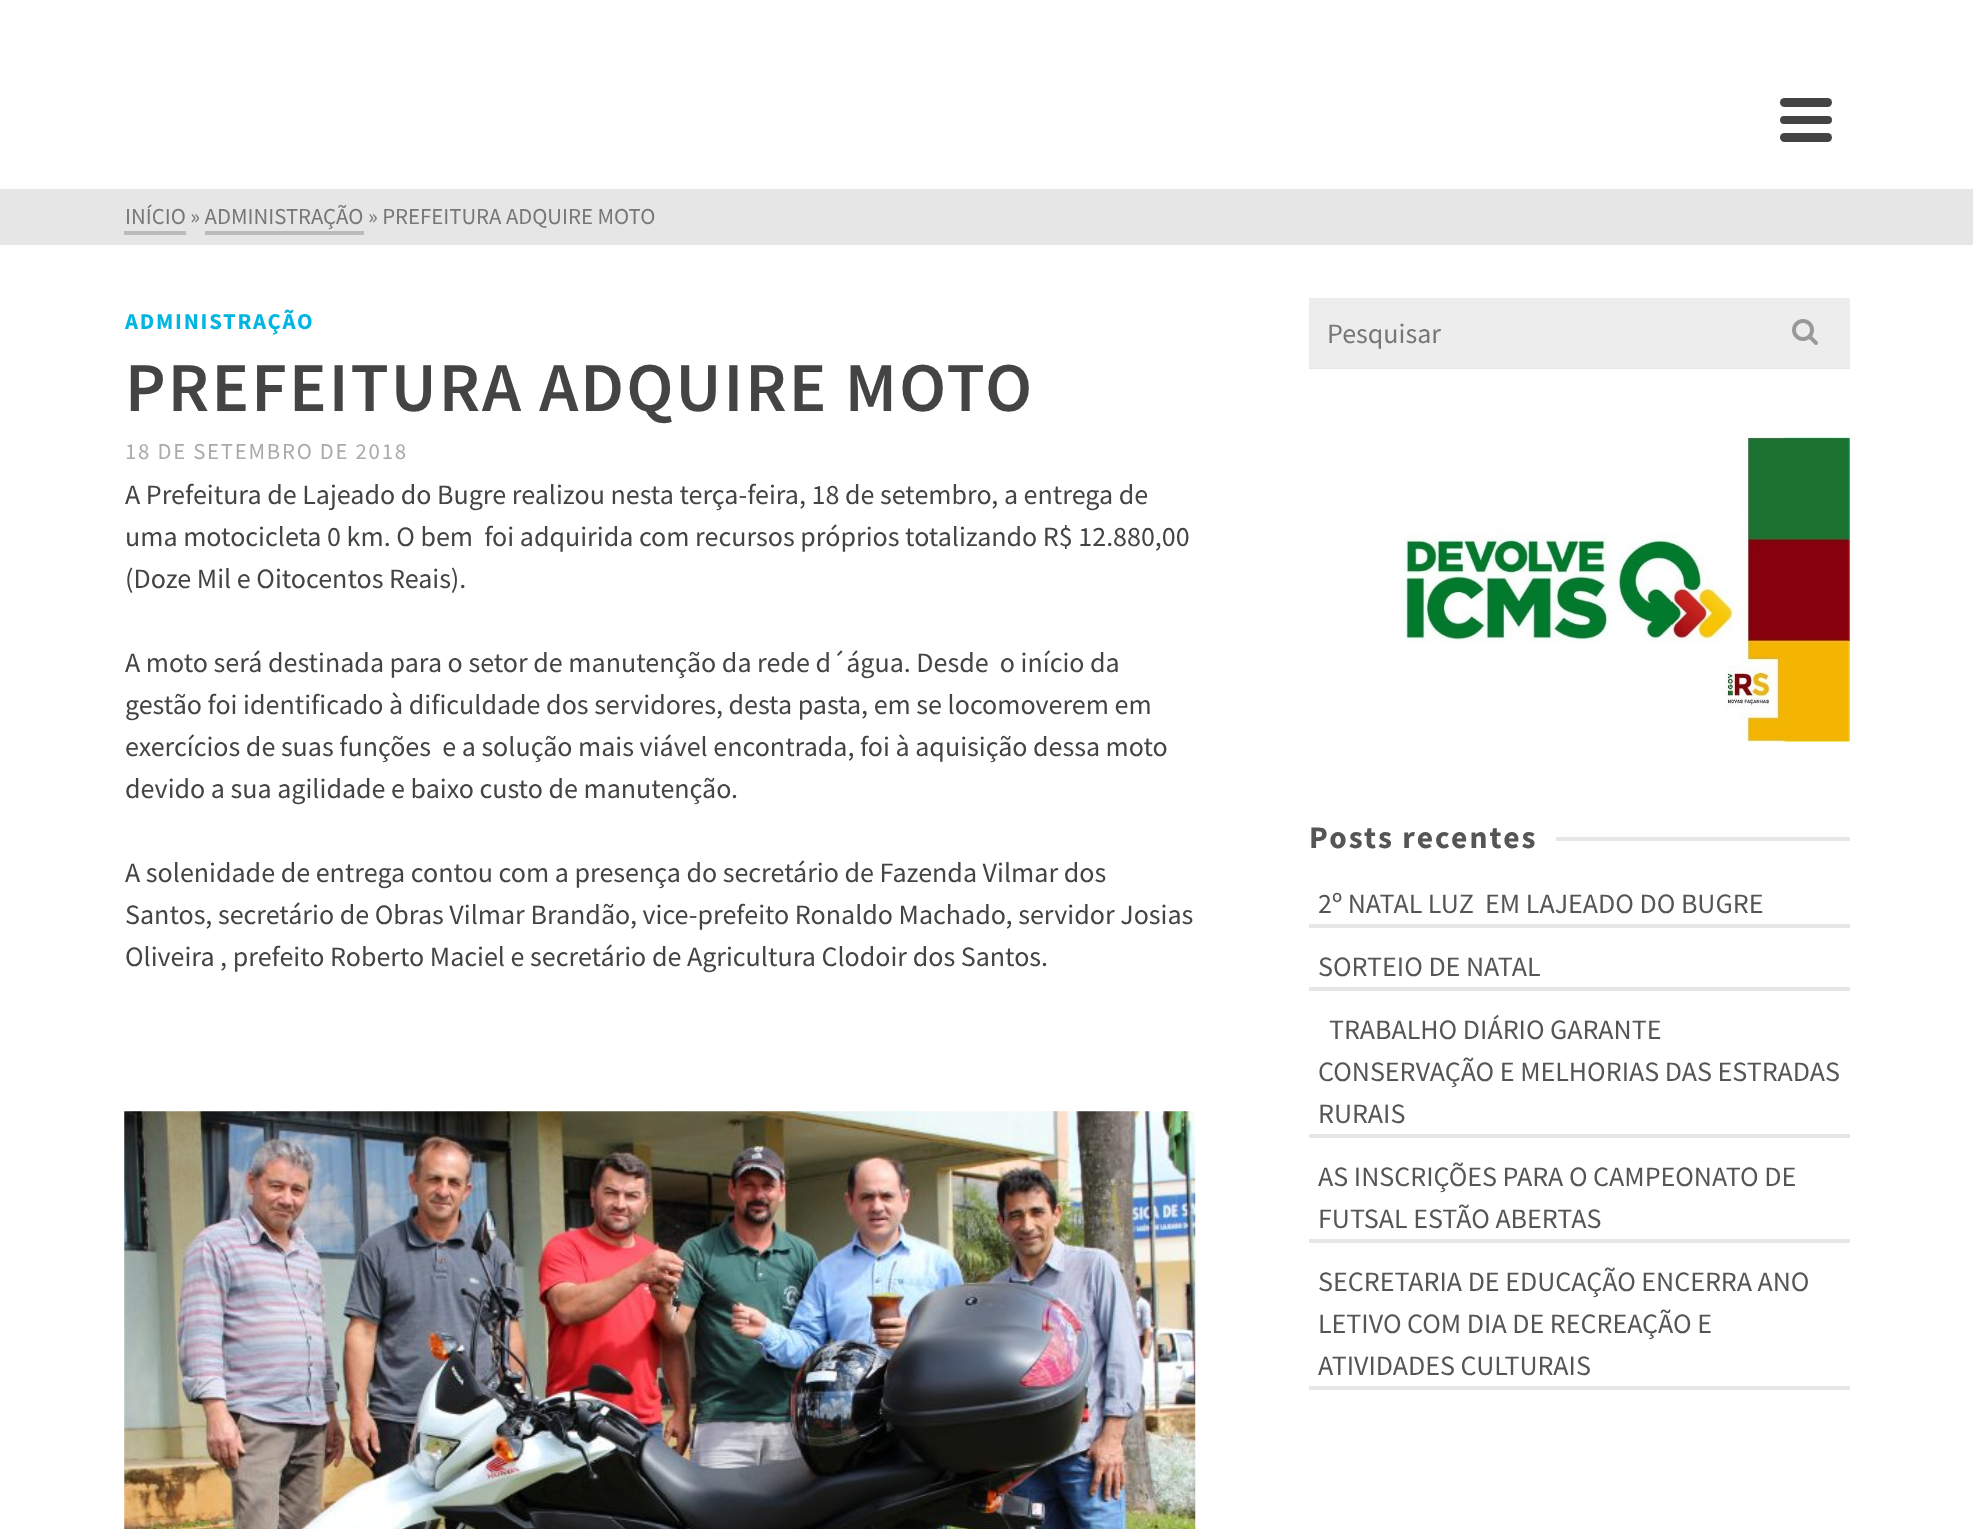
(async () => {
const canvas = document.querySelector("canvas")
canvas.width = 1973
canvas.height = 1529
const c = canvas.getContext("2d")
c.miterLimit = 4
c.fontKerning = "normal"
function T(s,x,y){c.fillText(s,x,y)}
function R(x,y,w,h){c.fillRect(x,y,w,h)}
function Q(x,y,w,h,r){c.beginPath();c.roundRect(x,y,w,h,r);c.fill()}
async function I(src,x,y,w,h){const img=new Image();img.src=src;await img.decode();c.drawImage(img,x,y,w,h)}
let path
c.fillStyle="#fff"
R(0,0,1973,1529)
c.fillStyle="#444"
Q(1780,98,52,9,4.5)
Q(1780,116,52,8,4)
Q(1780,133,52,9,4.5)
c.fillStyle="#e6e6e6"
R(0,189,1973,56)
c.font="22.75px Source Sans Pro"
c.fillStyle="#777"
T("INÍCIO » ADMINISTRAÇÃO » PREFEITURA ADQUIRE MOTO",125,224)
c.fillStyle="#bbb"
R(124,231,62,4)
R(205,231,159,4)
c.letterSpacing="1.75px"
c.font="bold 22.75px Source Sans Pro"
c.fillStyle="#00b5e2"
T("ADMINISTRAÇÃO",125,329)
c.letterSpacing="2.1px"
c.font="600 70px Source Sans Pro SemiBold"
c.fillStyle="#444"
T("PREFEITURA ADQUIRE MOTO",125,411)
c.letterSpacing="1.75px"
c.font="22.75px Source Sans Pro"
c.fillStyle="#aaa"
T("18 DE SETEMBRO DE 2018",125,459)
c.letterSpacing="0px"
c.font="28px Source Sans Pro"
c.fillStyle="#444"
T("A Prefeitura de Lajeado do Bugre realizou nesta terça-feira, 18 de setembro, a entrega de",125,504)
T("uma motocicleta 0 km. O bem  foi adquirida com recursos próprios totalizando R$ 12.880,00",125,546)
T("(Doze Mil e Oitocentos Reais).",125,588)
T("A moto será destinada para o setor de manutenção da rede d´água. Desde  o início da",125,672)
T("gestão foi identificado à dificuldade dos servidores, desta pasta, em se locomoverem em",125,714)
T("exercícios de suas funções  e a solução mais viável encontrada, foi à aquisição dessa moto",125,756)
T("devido a sua agilidade e baixo custo de manutenção.",125,798)
T("A solenidade de entrega contou com a presença do secretário de Fazenda Vilmar dos",125,882)
T("Santos, secretário de Obras Vilmar Brandão, vice-prefeito Ronaldo Machado, servidor Josias",125,924)
T("Oliveira , prefeito Roberto Maciel e secretário de Agricultura Clodoir dos Santos.",125,966)
await I("1.png",124,1111,1072,418)
c.fillStyle="#e6e6e6"
path = new Path2D("M1309 368v1h541v-70v69z")
c.fill(path)
c.fillStyle="#ededed"
R(1309,298,541,70)
c.fillStyle="#777"
T("Pesquisar",1327,343)
await I("2.png",1792,319,26,26)
await I("3.png",1404,437,446,305)
c.letterSpacing="2.1px"
c.font="bold 31.5px Source Sans Pro"
c.fillStyle="#555"
T("Posts recentes",1309,848)
c.fillStyle="#e6e6e6"
R(1556,837,294,4)
R(1309,924,541,4)
c.letterSpacing="0px"
c.font="28px Source Sans Pro"
c.fillStyle="#555"
T("2º NATAL LUZ  EM LAJEADO DO BUGRE",1318,913)
c.fillStyle="#e6e6e6"
R(1309,987,541,4)
c.fillStyle="#555"
T("SORTEIO DE NATAL",1318,976)
c.fillStyle="#e6e6e6"
R(1309,1134,541,4)
c.fillStyle="#555"
T("TRABALHO DIÁRIO GARANTE",1329,1039)
T("CONSERVAÇÃO E MELHORIAS DAS ESTRADAS",1318,1081)
T("RURAIS",1318,1123)
c.fillStyle="#e6e6e6"
R(1309,1239,541,4)
c.fillStyle="#555"
T("AS INSCRIÇÕES PARA O CAMPEONATO DE",1318,1186)
T("FUTSAL ESTÃO ABERTAS",1318,1228)
c.fillStyle="#e6e6e6"
R(1309,1386,541,4)
c.fillStyle="#555"
T("SECRETARIA DE EDUCAÇÃO ENCERRA ANO",1318,1291)
T("LETIVO COM DIA DE RECREAÇÃO E",1318,1333)
T("ATIVIDADES CULTURAIS",1318,1375)
})()
